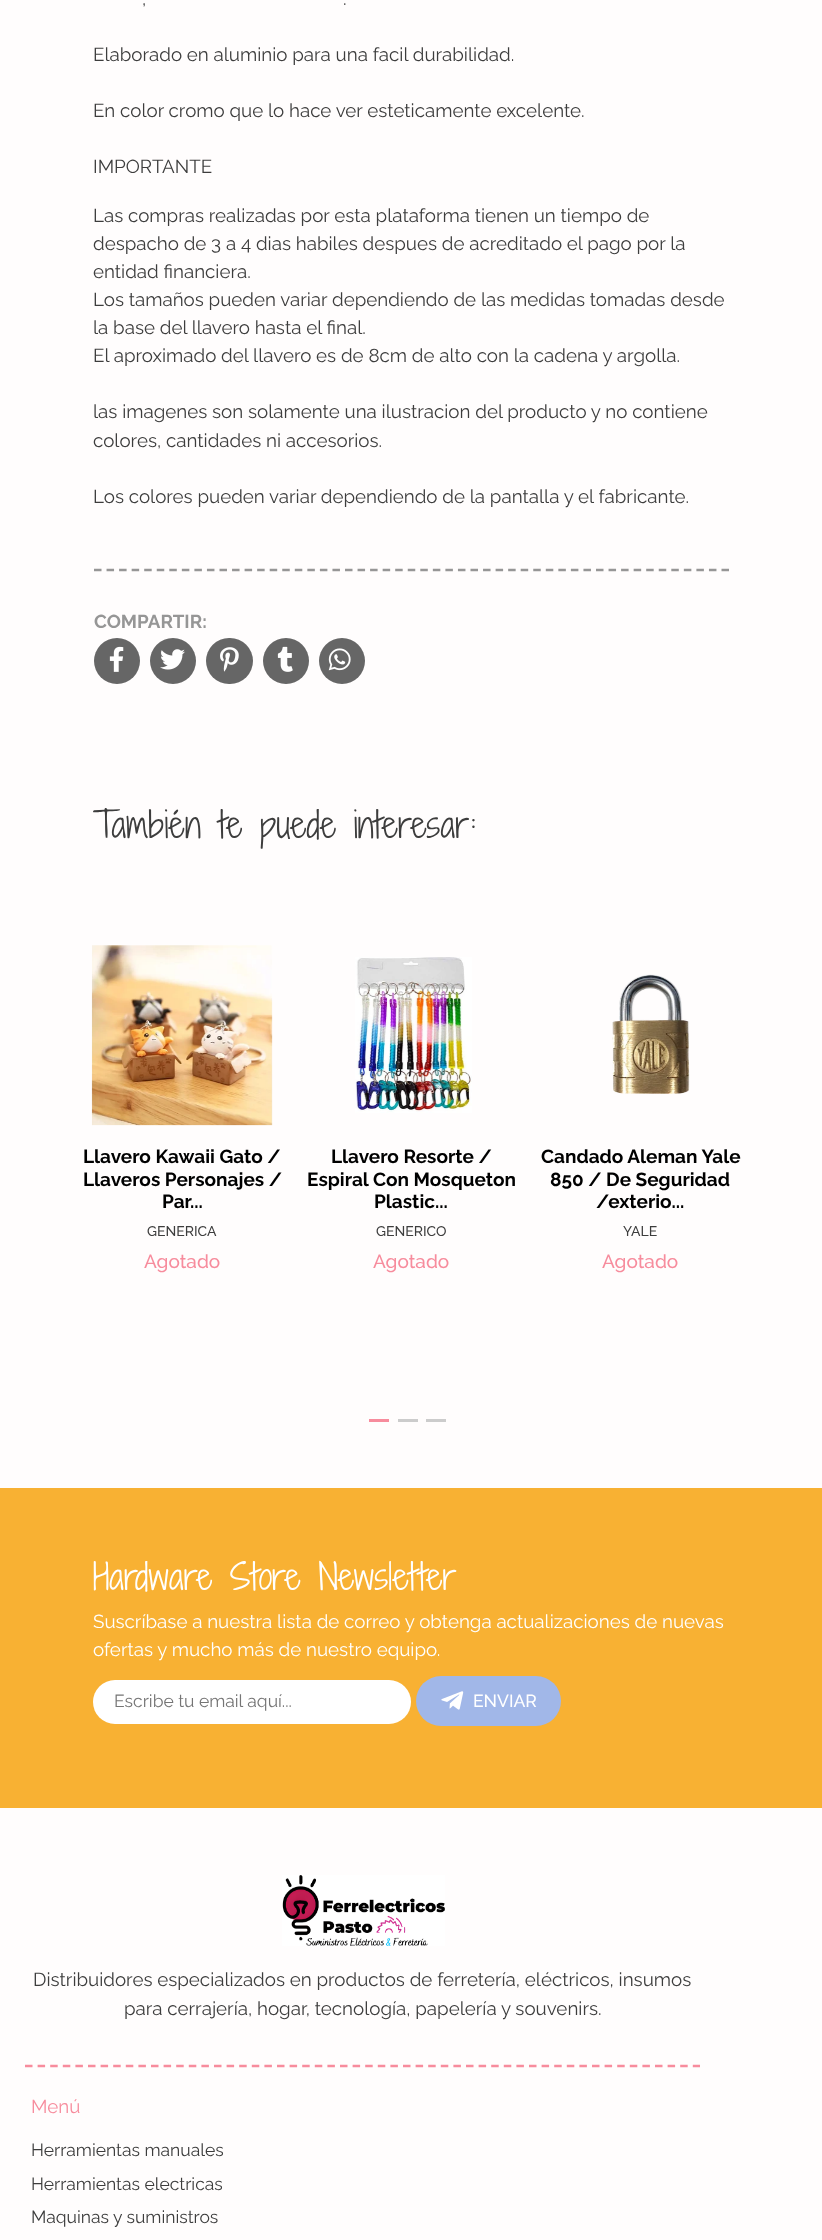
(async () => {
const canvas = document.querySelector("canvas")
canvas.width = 822
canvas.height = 2240
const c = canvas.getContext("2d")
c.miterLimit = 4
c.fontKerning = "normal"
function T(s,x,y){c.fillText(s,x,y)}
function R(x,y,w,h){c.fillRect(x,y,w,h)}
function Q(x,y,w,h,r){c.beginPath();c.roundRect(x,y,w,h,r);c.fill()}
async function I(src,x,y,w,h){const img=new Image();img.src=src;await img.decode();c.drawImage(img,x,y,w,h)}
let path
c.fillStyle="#fffdfd"
R(0,0,822,2240)
c.font="18.75px Raleway"
c.fillStyle="#3d3d3d"
T(",",142,5)
T(".",343,5)
T("Elaborado en aluminio para una facil durabilidad.",93,61)
T("En color cromo que lo hace ver esteticamente excelente.",93,117)
T("IMPORTANTE",93,173)
T("Las compras realizadas por esta plataforma tienen un tiempo de",93,222)
T("despacho de 3 a 4 dias habiles despues de acreditado el pago por la",93,250)
T("entidad financiera.",93,278)
T("Los tamaños pueden variar dependiendo de las medidas tomadas desde",93,306)
T("la base del llavero hasta el final.",93,334)
T("El aproximado del llavero es de 8cm de alto con la cadena y argolla.",93,362)
T("las imagenes son solamente una ilustracion del producto y no contiene",93,418)
T("colores, cantidades ni accesorios.",93,447)
T("Los colores pueden variar dependiendo de la pantalla y el fabricante.",93,503)
path = new Path2D("M94 570h635")
c.strokeStyle="#969696"
c.lineWidth=2.5
c.setLineDash([7.5,5.05])
c.stroke(path)
c.font="bold 18.75px Raleway"
c.fillStyle="#969696"
T("COMPARTIR:",94,628)
c.fillStyle="#666"
c.beginPath()
c.arc(117,661,23,0,7)
c.fill()
await I("1.png",109,646,15,26)
c.beginPath()
c.arc(173,661,23,0,7)
c.fill()
await I("2.png",160,649,25,21)
Q(206,638,47,46,23)
await I("3.png",220,647,19,25)
c.beginPath()
c.arc(286,661,23,0,7)
c.fill()
await I("4.png",277,646,16,26)
c.beginPath()
c.arc(342,661,23,0,7)
c.fill()
await I("5.png",328,648,23,23)
c.font="300 35px Shadows Into Light Two"
c.fillStyle="#3d3d3d"
T("También te puede interesar:",93,838)
await I("6.png",91,945,182,181)
c.font="bold 19px Raleway"
c.fillStyle="#000"
T("Llavero Kawaii Gato /",83,1163)
T("Llaveros Personajes /",83,1186)
T("Par...",162,1208)
c.font="500 14px Raleway"
c.fillStyle="#3d3d3d"
T("GENERICA",147,1236)
c.font="500 19px Raleway"
c.fillStyle="#f78c9d"
T("Agotado",144,1268)
await I("7.png",355,957,117,156)
c.font="bold 19px Raleway"
c.fillStyle="#000"
T("Llavero Resorte /",331,1163)
T("Espiral Con Mosqueton",307,1186)
T("Plastic...",374,1208)
c.font="500 14px Raleway"
c.fillStyle="#3d3d3d"
T("GENERICO",376,1236)
c.font="500 19px Raleway"
c.fillStyle="#f78c9d"
T("Agotado",373,1268)
await I("8.png",612,974,78,120)
c.font="bold 19px Raleway"
c.fillStyle="#000"
T("Candado Aleman Yale",541,1163)
T("850 / De Seguridad",550,1186)
T("/exterio...",596,1208)
c.font="500 14px Raleway"
c.fillStyle="#3d3d3d"
T("YALE",623,1236)
c.font="500 19px Raleway"
c.fillStyle="#f78c9d"
T("Agotado",602,1268)
R(369,1419,20,3)
c.fillStyle="#ccc"
R(398,1419,20,3)
R(426,1419,20,3)
c.fillStyle="#f8b133"
R(0,1488,822,320)
c.font="300 35px Shadows Into Light Two"
c.fillStyle="#fff"
T("Hardware Store Newsletter",93,1590)
c.font="18.75px Raleway"
T("Suscríbase a nuestra lista de correo y obtenga actualizaciones de nuevas",93,1628)
T("ofertas y mucho más de nuestro equipo.",93,1656)
Q(93,1680,318,44,22)
c.font="17.5px Raleway"
c.fillStyle="#757575"
T("Escribe tu email aquí...",114,1707)
c.fillStyle="#a1b7e8"
Q(416,1676,145,50,25)
await I("9.png",441,1691,23,19)
c.font="500 17.5px Raleway"
c.fillStyle="#fff"
T("ENVIAR",473,1707)
path = new Path2D("M25 2066h675")
c.strokeStyle="#f78c9d"
c.setLineDash([7.5,5.1])
c.stroke(path)
await I("10.png",282,1875,163,71)
c.font="18.75px Raleway"
c.fillStyle="#3d3d3d"
T("Distribuidores especializados en productos de ferretería, eléctricos, insumos",33,1986)
T("para cerrajería, hogar, tecnología, papelería y souvenirs.",124,2015)
c.fillStyle="#f78c9d"
T("Menú",31,2113)
c.font="17.5px Raleway"
c.fillStyle="#3d3d3d"
T("Herramientas manuales",31,2156)
T("Herramientas electricas",31,2190)
T("Maquinas y suministros",31,2223)
})()
